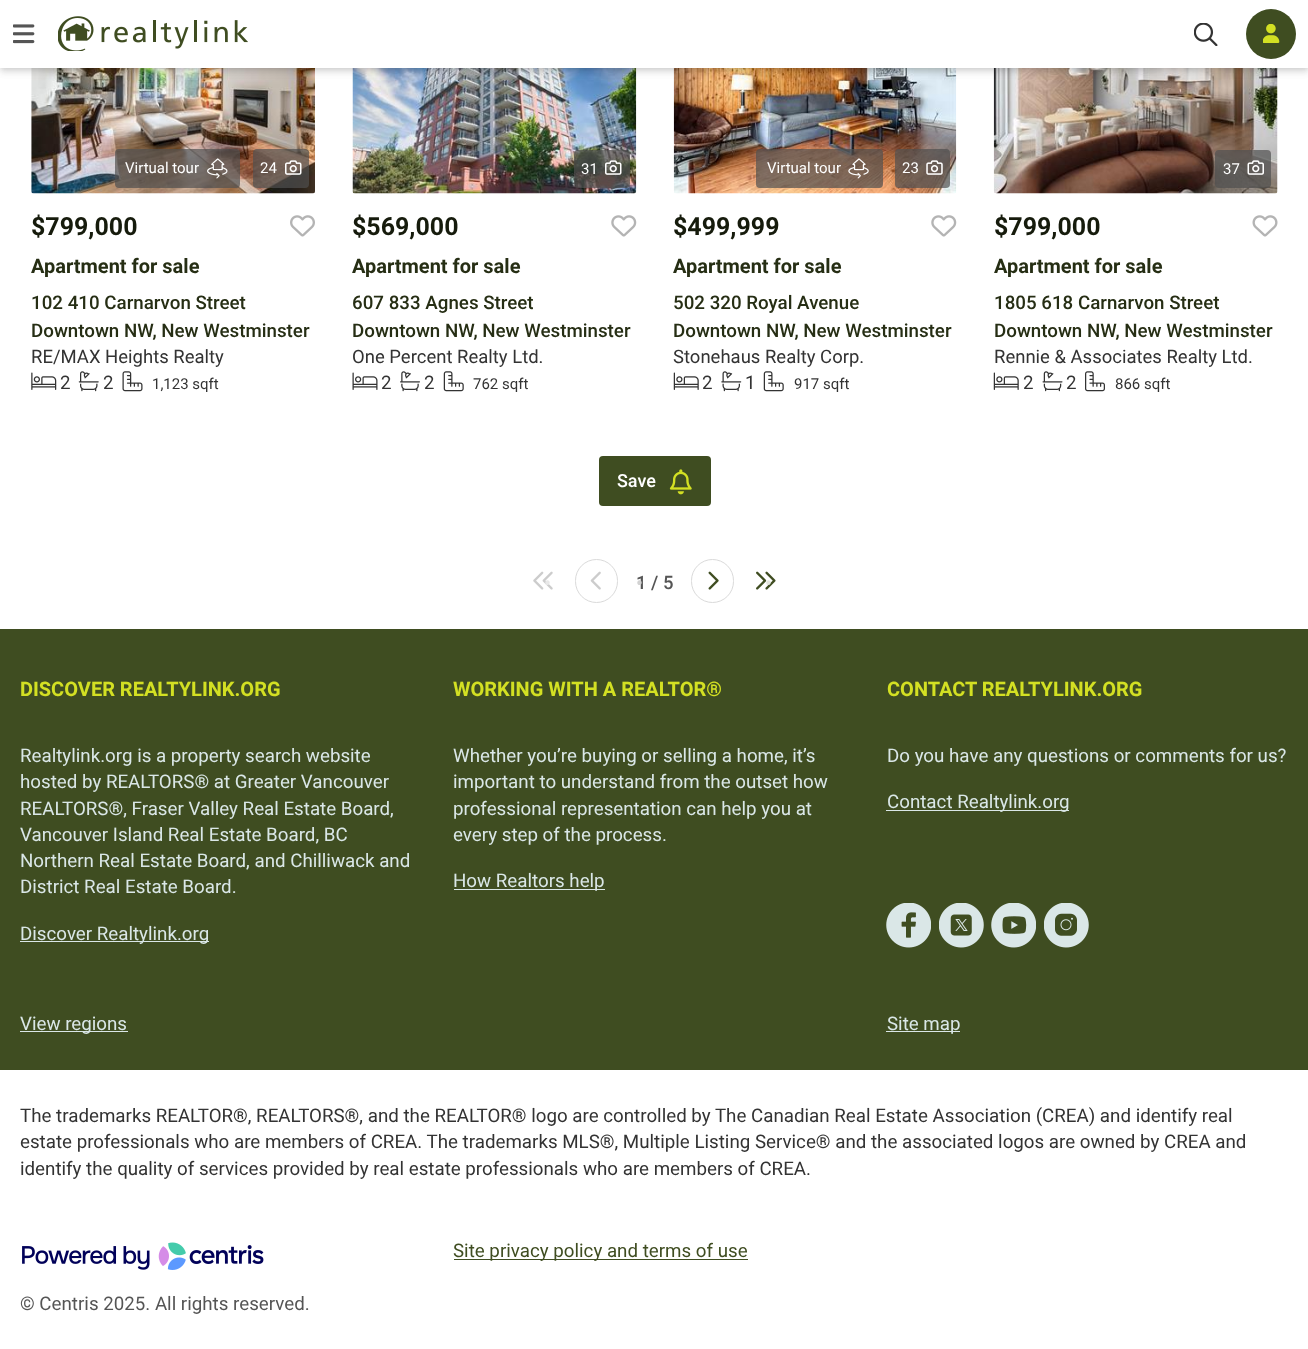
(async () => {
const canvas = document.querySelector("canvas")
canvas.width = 1308
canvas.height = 1349
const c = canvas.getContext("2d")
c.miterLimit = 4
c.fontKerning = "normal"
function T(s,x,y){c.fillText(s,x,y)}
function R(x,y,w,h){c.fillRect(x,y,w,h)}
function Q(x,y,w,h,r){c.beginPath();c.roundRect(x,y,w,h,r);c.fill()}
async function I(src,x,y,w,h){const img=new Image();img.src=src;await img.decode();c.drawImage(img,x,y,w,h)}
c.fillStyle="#fff"
R(0,0,1308,1349)
await I("5.png",31,68,284,126)
await I("12.png",352,68,285,126)
await I("18.png",673,68,284,126)
await I("23.png",993,68,285,126)
c.fillStyle="#0000000f"
c.filter="blur(6px)"
c.beginPath()
c.rect(0,1,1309,68)
c.fill()
c.filter="none"
c.fillStyle="#00000012"
c.filter="blur(3px)"
c.beginPath()
c.rect(0,5,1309,68)
c.fill()
c.filter="none"
c.fillStyle="#0000001a"
c.filter="blur(2.5px)"
c.beginPath()
c.rect(1,4,1307,65)
c.fill()
c.filter="none"
c.fillStyle="#fff"
R(0,0,1308,68)
await I("1.png",13,24,22,20)
await I("2.png",58,16,190,35)
await I("3.png",1194,23,24,23)
c.fillStyle="#3f4d21"
c.beginPath()
c.arc(1271,34,25,0,7)
c.fill()
await I("4.png",1263,24,17,19)
c.fillStyle="#505050b3"
Q(115,149,125,39,4)
c.font="15px Roboto"
c.fillStyle="#fff"
T("Virtual tour",125,173)
await I("6.png",207,158,21,21)
c.fillStyle="#505050b3"
Q(253,149,56,39,4)
c.fillStyle="#fff"
T("24",260,173)
await I("7.png",285,160,17,15)
c.font="bold 25px Roboto"
c.fillStyle="#161b0c"
T("$799,000",31,235)
await I("8.png",290,215,25,22)
c.font="bold 20px Roboto"
c.fillStyle="#262e14"
T("Apartment for sale",31,273)
c.font="500 18.75px Roboto"
T("102 410 Carnarvon Street",31,309)
T("Downtown NW, New Westminster",31,337)
c.font="18.5px Roboto"
c.fillStyle="#333"
T("RE/MAX Heights Realty",31,363)
await I("9.png",31,372,26,18)
c.font="18.75px Roboto"
T("2",60,389)
await I("10.png",78,371,21,21)
T("2",103,389)
await I("11.png",122,371,21,21)
c.font="15px Roboto"
T("1,123 sqft",152,389)
c.fillStyle="#505050b3"
Q(574,150,56,38,4)
c.fillStyle="#fff"
T("31",581,174)
await I("13.png",605,160,17,15)
c.font="bold 25px Roboto"
c.fillStyle="#161b0c"
T("$569,000",352,235)
await I("14.png",611,215,26,22)
c.font="bold 20px Roboto"
c.fillStyle="#262e14"
T("Apartment for sale",352,273)
c.font="500 18.75px Roboto"
T("607 833 Agnes Street",352,309)
T("Downtown NW, New Westminster",352,337)
c.font="18.5px Roboto"
c.fillStyle="#333"
T("One Percent Realty Ltd.",352,363)
await I("15.png",352,372,26,18)
c.font="18.75px Roboto"
T("2",381,389)
await I("16.png",400,371,20,21)
T("2",424,389)
await I("17.png",443,371,21,21)
c.font="15px Roboto"
T("762 sqft",473,389)
c.fillStyle="#505050b3"
Q(756,149,127,39,4)
c.fillStyle="#fff"
T("Virtual tour",767,173)
await I("19.png",848,158,21,21)
c.fillStyle="#505050b3"
Q(895,149,55,39,4)
c.fillStyle="#fff"
T("23",902,173)
await I("20.png",926,160,17,15)
c.font="bold 25px Roboto"
c.fillStyle="#161b0c"
T("$499,999",673,235)
await I("14.png",931,215,26,22)
c.font="bold 20px Roboto"
c.fillStyle="#262e14"
T("Apartment for sale",673,273)
c.font="500 18.75px Roboto"
T("502 320 Royal Avenue",673,309)
T("Downtown NW, New Westminster",673,337)
c.font="18.5px Roboto"
c.fillStyle="#333"
T("Stonehaus Realty Corp.",673,363)
await I("21.png",673,372,26,18)
c.font="18.75px Roboto"
T("2",702,389)
await I("22.png",721,371,21,21)
T("1",745,389)
await I("17.png",763,371,21,21)
c.font="15px Roboto"
T("917 sqft",794,389)
c.fillStyle="#505050b3"
Q(1215,150,56,38,4)
c.fillStyle="#fff"
T("37",1223,174)
await I("24.png",1247,160,17,15)
c.font="bold 25px Roboto"
c.fillStyle="#161b0c"
T("$799,000",994,235)
await I("25.png",1252,215,26,22)
c.font="bold 20px Roboto"
c.fillStyle="#262e14"
T("Apartment for sale",994,273)
c.font="500 18.75px Roboto"
T("1805 618 Carnarvon Street",994,309)
T("Downtown NW, New Westminster",994,337)
c.font="18.5px Roboto"
c.fillStyle="#333"
T("Rennie & Associates Realty Ltd.",994,363)
await I("21.png",993,372,26,18)
c.font="18.75px Roboto"
T("2",1023,389)
await I("26.png",1042,371,21,21)
T("2",1066,389)
await I("27.png",1085,371,20,21)
c.font="15px Roboto"
T("866 sqft",1115,389)
c.fillStyle="#3f4d21"
Q(599,456,112,50,4)
c.font="500 18px Roboto"
c.fillStyle="#fff"
T("Save",617,487)
await I("28.png",669,469,23,26)
await I("29.png",533,571,20,19)
c.font="500 20px Roboto"
c.fillStyle="#e8e8e8"
T("•",544,590)
c.beginPath()
c.roundRect(575.5,559.5,42,43,21)
c.strokeStyle="#dadada"
c.stroke()
await I("30.png",590,571,11,19)
c.font="500 18.5px Roboto"
c.fillStyle="#555"
T("1 / 5",636,589)
c.font="500 20px Roboto"
c.fillStyle="#d2d2d2"
T("•",636,590)
c.beginPath()
c.roundRect(691.5,559.5,42,43,21)
c.stroke()
await I("31.png",708,571,11,19)
await I("32.png",756,571,20,19)
c.fillStyle="#e2e4dd"
T("•",765,590)
c.fillStyle="#3f4d21"
R(0,629,1308,441)
c.font="bold 20px Roboto"
c.fillStyle="#d3e023"
T("DISCOVER REALTYLINK.ORG",20,696)
c.font="18.75px Roboto"
c.fillStyle="#dae7e7"
T("Realtylink.org is a property search website",20,762)
T("hosted by REALTORS® at Greater Vancouver",20,788)
T("REALTORS®, Fraser Valley Real Estate Board,",20,815)
T("Vancouver Island Real Estate Board, BC",20,841)
T("Northern Real Estate Board, and Chilliwack and",20,867)
T("District Real Estate Board.",20,893)
R(20,941,189,1)
T("Discover Realtylink.org",20,940)
c.font="bold 20px Roboto"
c.fillStyle="#d3e023"
T("WORKING WITH A REALTOR®",453,696)
c.font="18.75px Roboto"
c.fillStyle="#dae7e7"
T("Whether you’re buying or selling a home, it’s",453,762)
T("important to understand from the outset how",453,788)
T("professional representation can help you at",453,815)
T("every step of the process.",453,841)
R(454,889,151,1)
T("How Realtors help",453,887)
c.font="bold 20px Roboto"
c.fillStyle="#d3e023"
T("CONTACT REALTYLINK.ORG",887,696)
c.font="18.75px Roboto"
c.fillStyle="#dae7e7"
T("Do you have any questions or comments for us?",887,762)
R(886,810,183,1)
T("Contact Realtylink.org",887,808)
await I("33.png",886,903,45,45)
await I("34.png",939,903,45,45)
await I("35.png",991,903,45,45)
await I("36.png",1044,903,45,45)
R(20,1031,108,1)
T("View regions",20,1030)
R(886,1031,74,1)
T("Site map",887,1030)
c.fillStyle="#333"
T("The trademarks REALTOR®, REALTORS®, and the REALTOR® logo are controlled by The Canadian Real Estate Association (CREA) and identify real",20,1122)
T("estate professionals who are members of CREA. The trademarks MLS®, Multiple Listing Service® and the associated logos are owned by CREA and",20,1148)
T("identify the quality of services provided by real estate professionals who are members of CREA.",20,1175)
c.fillStyle="#3f4d21"
R(454,1259,294,1)
T("Site privacy policy and terms of use",453,1257)
await I("37.png",22,1242,242,28)
c.fillStyle="#555"
T("© Centris 2025. All rights reserved.",20,1310)
})()
